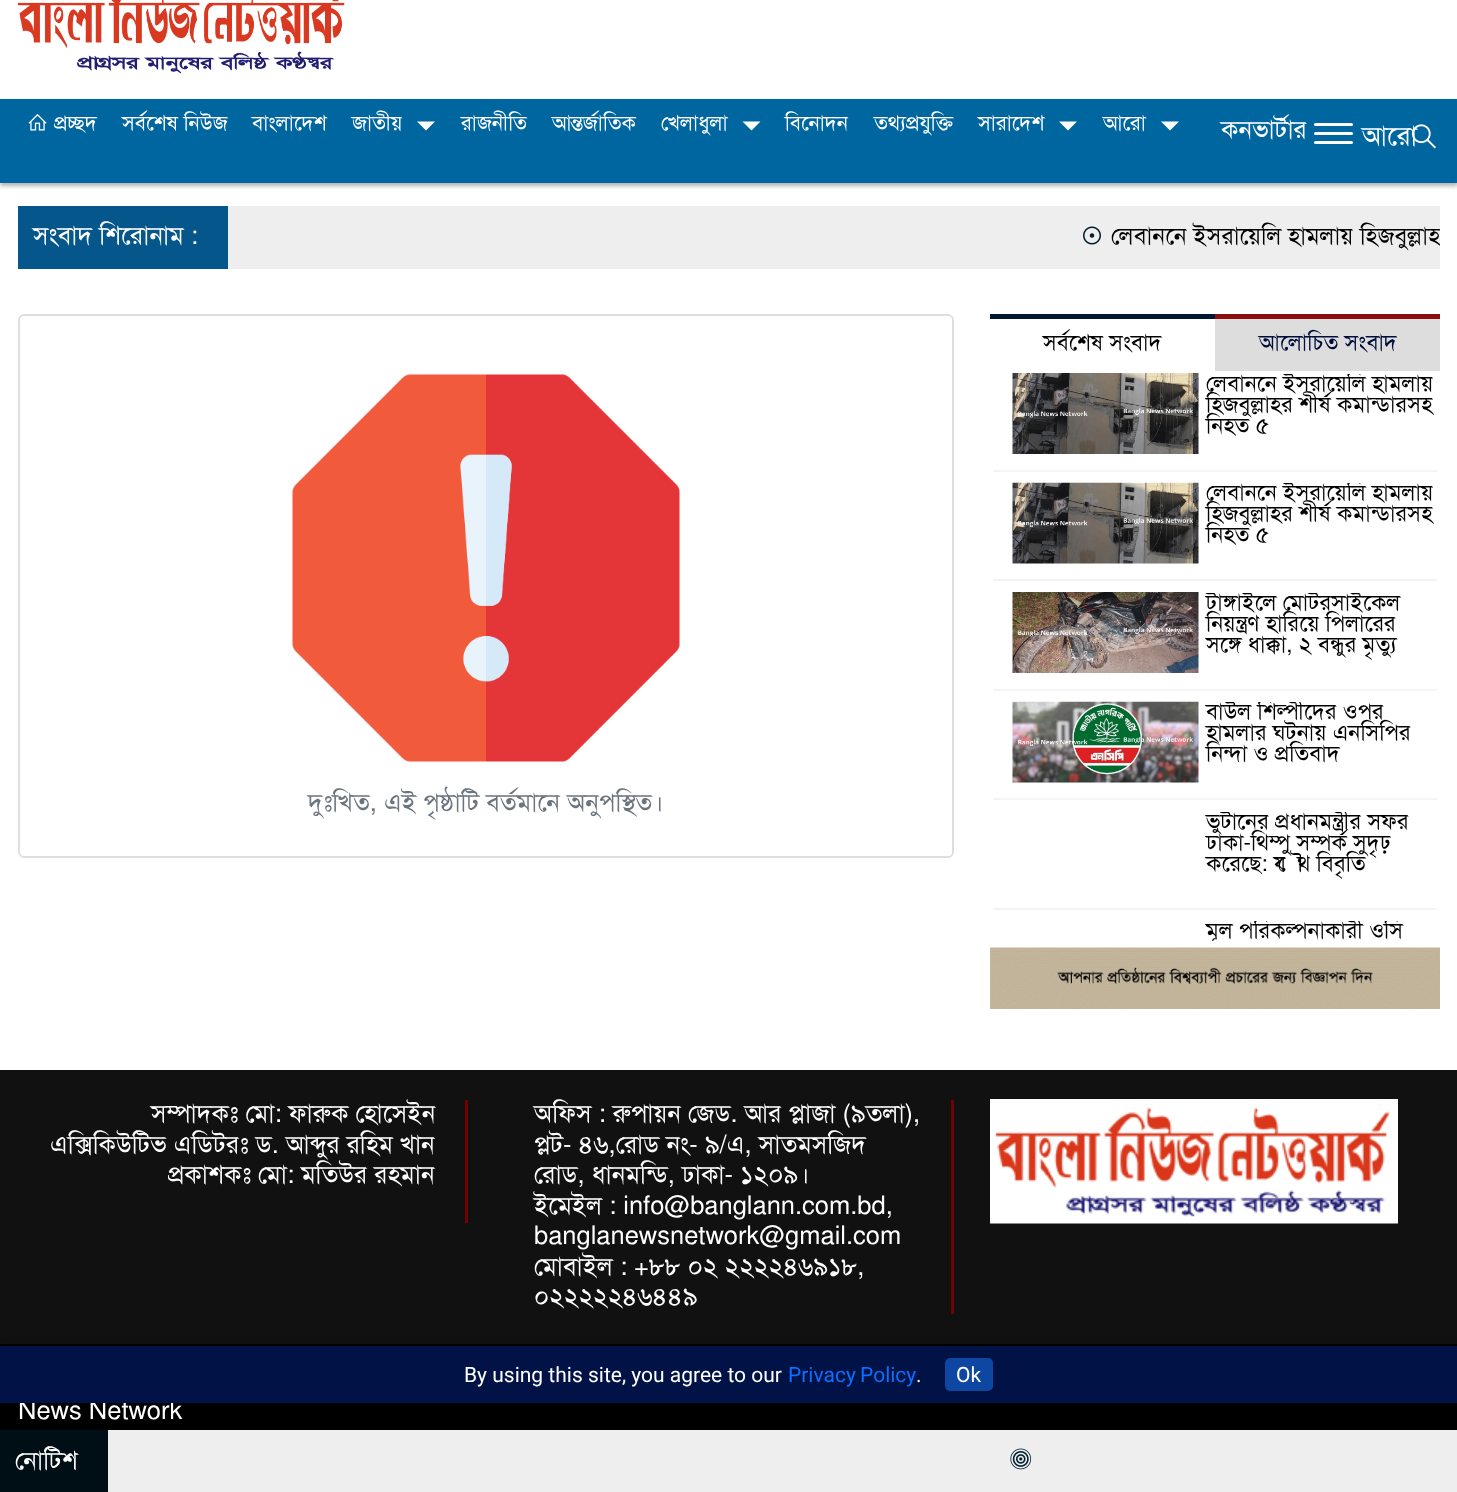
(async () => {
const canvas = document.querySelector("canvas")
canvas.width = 1457
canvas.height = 1492
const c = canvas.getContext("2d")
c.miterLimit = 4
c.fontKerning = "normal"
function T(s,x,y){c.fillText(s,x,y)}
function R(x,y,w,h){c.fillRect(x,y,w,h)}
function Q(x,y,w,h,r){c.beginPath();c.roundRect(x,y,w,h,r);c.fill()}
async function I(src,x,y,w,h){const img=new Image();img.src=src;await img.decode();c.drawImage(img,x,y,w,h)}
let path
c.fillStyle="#fff"
R(0,0,1457,1492)
await I("1.png",18,0,327,74)
c.fillStyle="#0000004d"
c.filter="blur(2px)"
c.beginPath()
c.rect(0,102,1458,84)
c.fill()
c.filter="none"
c.fillStyle="#00669f"
R(0,99,1457,84)
await I("2.png",28,113,19,18)
c.font="21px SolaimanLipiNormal"
c.fillStyle="#fff"
T("প্রচ্ছদ",54,130)
T("সর্বশেষ নিউজ",122,130)
T("বাংলাদেশ",252,130)
T("জাতীয়",352,130)
path = new Path2D("M417 121.5h18l-9 9z")
c.fill(path)
T("রাজনীতি",461,130)
T("আন্তর্জাতিক",552,130)
T("খেলাধুলা",661,130)
path = new Path2D("M742.5 121.5h18l-9 9z")
c.fill(path)
T("বিনোদন",785,130)
T("তথ্যপ্রযুক্তি",874,130)
T("সারাদেশ",978,130)
path = new Path2D("M1059 121.5h18l-9 9z")
c.fill(path)
T("আরো",1103,130)
path = new Path2D("M1161 121.5h18l-9 9z")
c.fill(path)
c.font="25.5px SolaimanLipiNormal"
T("কনভার্টার",1221,138)
Q(1314,123,39,3,1.5)
Q(1314,132,39,3,1.5)
Q(1314,141,39,3,1.5)
c.font="27px SolaimanLipiNormal"
T("আরো",1362,145)
await I("3.png",1411,124,25,25)
c.fillStyle="#05568a"
R(18,206,210,63)
c.font="25.5px SolaimanLipiNormal"
c.fillStyle="#fff"
T("সংবাদ শিরোনাম :",33,244)
c.fillStyle="#eee"
R(228,206,1212,63)
await I("4.png",1083,226,18,19)
c.save()
c.beginPath()
c.rect(18,206,1422,63)
c.clip()
c.font="24px SolaimanLipiNormal"
c.fillStyle="#000"
T("লেবাননে ইসরায়েলি হামলায় হিজবুল্লাহ",1111,244)
c.restore()
c.beginPath()
c.roundRect(19,315,934,542,5)
c.strokeStyle="#dfdfdf"
c.lineWidth=2
c.stroke()
await I("5.png",292,374,388,388)
c.fillStyle="#6c757d"
T("দুঃখিত, এই পৃষ্ঠাটি বর্তমানে অনুপস্থিত।",308,811)
c.fillStyle="#01192f"
R(990,314,225,5)
c.font="22.5px SolaimanLipiNormal"
c.fillStyle="#000"
T("সর্বশেষ সংবাদ",1043,350)
c.fillStyle="#ddd"
R(1215,319,225,52)
c.fillStyle="#8b1010"
R(1215,314,225,5)
c.fillStyle="#000d39"
T("আলোচিত সংবাদ",1259,350)
c.fillStyle="#f4f4f4"
R(993,470,444,2)
await I("6.png",1012,373,187,81)
c.save()
c.beginPath()
c.rect(993,374,444,96)
c.clip()
c.fillStyle="#000"
T("লেবাননে ইসরায়েলি হামলায়",1206,391)
c.restore()
c.fillStyle="#000"
T("হিজবুল্লাহর শীর্ষ কমান্ডারসহ",1206,412)
T("নিহত ৫",1206,433)
c.fillStyle="#f4f4f4"
R(993,579,444,2)
await I("7.png",1012,482,187,82)
c.save()
c.beginPath()
c.rect(993,483,444,96)
c.clip()
c.fillStyle="#000"
T("লেবাননে ইসরায়েলি হামলায়",1206,500)
c.restore()
c.fillStyle="#000"
T("হিজবুল্লাহর শীর্ষ কমান্ডারসহ",1206,521)
T("নিহত ৫",1206,542)
c.fillStyle="#f4f4f4"
R(993,689,444,2)
await I("8.png",1012,592,187,81)
c.save()
c.beginPath()
c.rect(993,593,444,96)
c.clip()
c.fillStyle="#000"
T("টাঙ্গাইলে মোটরসাইকেল",1206,610)
c.restore()
c.fillStyle="#000"
T("নিয়ন্ত্রণ হারিয়ে পিলারের",1206,631)
T("সঙ্গে ধাক্কা, ২ বন্ধুর মৃত্যু",1206,652)
c.fillStyle="#f4f4f4"
R(993,798,444,2)
await I("9.png",1012,701,187,82)
c.save()
c.beginPath()
c.rect(993,702,444,96)
c.clip()
c.fillStyle="#000"
T("বাউল শিল্পীদের ওপর",1206,719)
c.restore()
c.fillStyle="#000"
T("হামলার ঘটনায় এনসিপির",1206,740)
T("নিন্দা ও প্রতিবাদ",1206,761)
c.fillStyle="#f4f4f4"
R(993,908,444,2)
c.save()
c.beginPath()
c.rect(993,812,444,96)
c.clip()
c.fillStyle="#000"
T("ভুটানের প্রধানমন্ত্রীর সফর",1206,829)
c.restore()
c.fillStyle="#000"
T("ঢাকা-থিম্পু সম্পর্ক সুদৃঢ়",1206,850)
T("করেছে: যৌথ বিবৃতি",1206,871)
c.save()
c.beginPath()
c.rect(993,921,444,20)
c.clip()
T("মূল পরিকল্পনাকারী ওসি",1206,938)
c.restore()
await I("10.png",990,947,450,62)
c.fillStyle="#111"
R(0,1070,1457,274)
c.fillStyle="#730101"
R(465,1100,3,123)
c.font="25.5px SolaimanLipiNormal"
c.fillStyle="#fff"
T("সম্পাদকঃ মো: ফারুক হোসেইন",151,1122)
T("এক্সিকিউটিভ এডিটরঃ ড. আব্দুর রহিম খান",50,1153)
T("প্রকাশকঃ মো: মতিউর রহমান",168,1183)
c.fillStyle="#730101"
R(951,1100,3,214)
c.fillStyle="#fff"
T("অফিস : রুপায়ন জেড. আর প্লাজা (৯তলা),",534,1122)
T("প্লট- ৪৬,রোড নং- ৯/এ, সাতমসজিদ",534,1153)
T("রোড, ধানমন্ডি, ঢাকা- ১২০৯।",534,1183)
T("ইমেইল : info@banglann.com.bd,",534,1214)
T("banglanewsnetwork@gmail.com",534,1244)
T("মোবাইল : +৮৮ ০২ ২২২২৪৬৯১৮,",534,1275)
T("০২২২২২৪৬৪৪৯",534,1305)
await I("11.png",990,1099,408,125)
c.fillStyle="#000"
R(0,1344,1457,86)
c.save()
path = new Path2D("M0 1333h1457v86h-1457zm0 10h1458v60h-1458z")
c.clip(path,"evenodd")
c.fillStyle="#0000004d"
c.filter="blur(4px)"
c.beginPath()
c.rect(0,1346,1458,60)
c.fill()
c.filter="none"
c.restore()
c.fillStyle="#fff"
T("News Network",18,1419)
c.fillStyle="#001246"
R(0,1346,1457,57)
c.font="21px Roboto"
c.fillStyle="#fff"
T("By using this site, you agree to our",464,1382)
c.wordSpacing="-1px"
c.fillStyle="#0d6efd"
T("Privacy Policy",788,1382)
c.wordSpacing="0px"
c.fillStyle="#fff"
T(".",916,1382)
c.fillStyle="#0d47a1"
Q(945,1358,48,33,5)
c.fillStyle="#fff"
T("Ok",956,1382)
c.fillStyle="#000e15"
R(0,1430,108,62)
c.font="25.5px SolaimanLipiNormal"
c.fillStyle="#fff"
T("নোটিশ",15,1469)
c.fillStyle="#eee"
R(108,1430,1349,62)
await I("12.png",1010,1448,22,22)
})()
